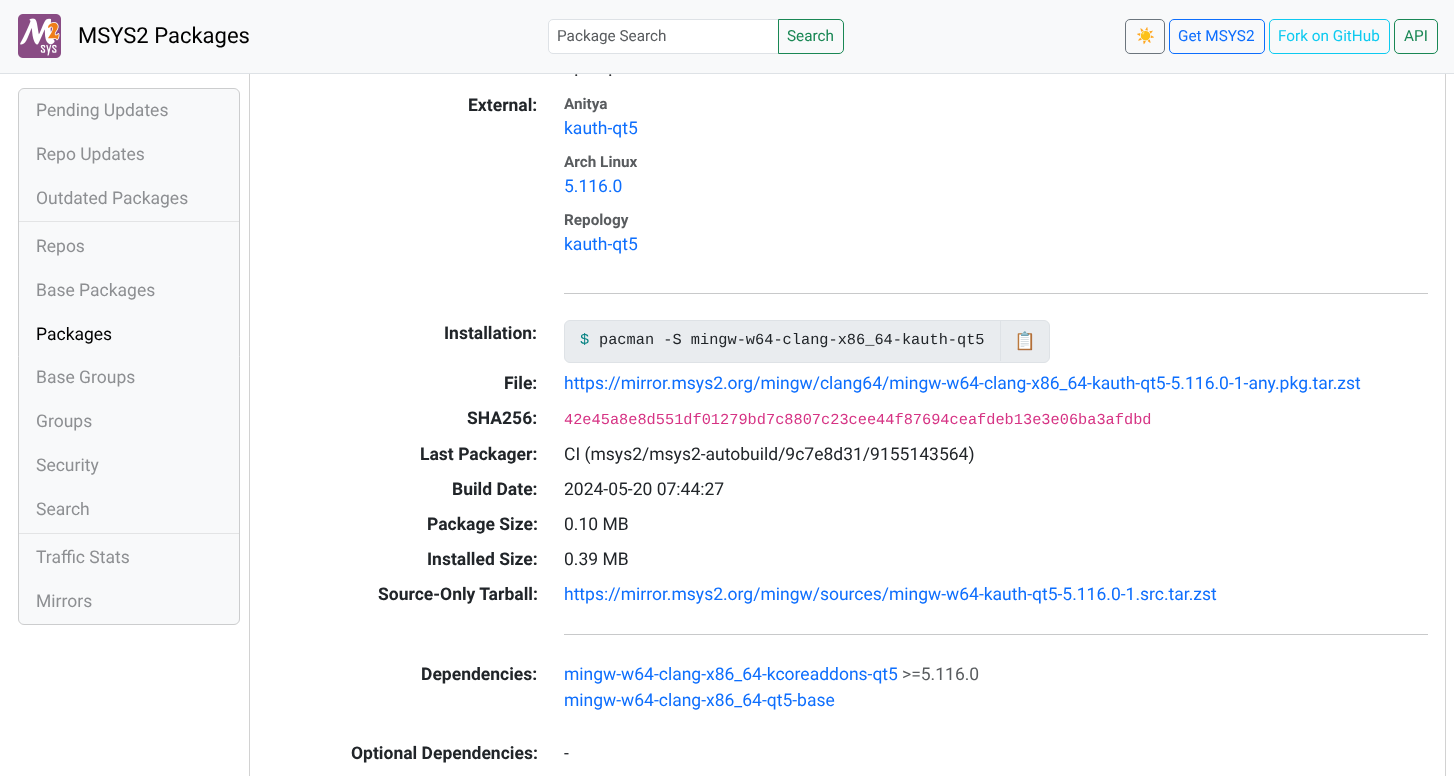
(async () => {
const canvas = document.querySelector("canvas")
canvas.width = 1454
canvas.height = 776
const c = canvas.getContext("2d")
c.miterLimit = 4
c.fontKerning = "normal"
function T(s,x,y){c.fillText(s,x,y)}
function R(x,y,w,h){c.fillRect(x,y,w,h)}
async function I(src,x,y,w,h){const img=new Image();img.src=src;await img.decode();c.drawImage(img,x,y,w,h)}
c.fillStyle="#fff"
R(0,0,1454,776)
c.strokeStyle="#d2d2d2"
c.strokeRect(249.5,-.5,1196,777)
c.fillStyle="#f8f9fa"
R(0,0,1454,73)
c.fillStyle="#dee2e6"
R(0,73,1454,1)
await I("1.png",18,14,43,44)
c.font="22px Roboto"
c.fillStyle="#000"
T("MSYS2 Packages",78,43)
c.fillStyle="#fff"
c.beginPath()
c.roundRect(549,20,229,33,[3,0,0,3])
c.fill()
c.beginPath()
c.roundRect(548.5,19.5,230,34,[4.5,0,0,4.5])
c.strokeStyle="#dee2e6"
c.stroke()
c.font="15.3px Roboto"
c.fillStyle="#595c5f"
T("Package Search",557,41)
c.beginPath()
c.roundRect(778.5,19.5,65,34,[0,4.5,4.5,0])
c.strokeStyle="#198754"
c.stroke()
c.fillStyle="#198754"
T("Search",787,41)
c.beginPath()
c.roundRect(1125.5,19.5,39,34,4.5)
c.strokeStyle="#6c757d"
c.stroke()
c.font="15.3px Noto Color Emoji"
c.fillStyle="#6c757d"
T("☀️",1136,41)
c.beginPath()
c.roundRect(1169.5,19.5,95,34,4.5)
c.strokeStyle="#0d6efd"
c.stroke()
c.font="15.3px Roboto"
c.fillStyle="#0d6efd"
T("Get MSYS2",1178,41)
c.beginPath()
c.roundRect(1269.5,19.5,120,34,4.5)
c.strokeStyle="#0dcaf0"
c.stroke()
c.fillStyle="#0dcaf0"
T("Fork on GitHub",1278,41)
c.beginPath()
c.roundRect(1394.5,19.5,43,34,4.5)
c.strokeStyle="#198754"
c.stroke()
c.fillStyle="#198754"
T("API",1404,41)
c.fillStyle="#f8f9fa"
c.beginPath()
c.roundRect(18.5,88.5,221,536,5.5)
c.fill()
c.strokeStyle="#cccdce"
c.stroke()
c.font="17.5px Roboto"
c.fillStyle="#8d8f92"
T("Pending Updates",36,116)
T("Repo Updates",36,160)
T("Outdated Packages",36,204)
c.fillStyle="#e3e4e5"
R(19,221,220,1)
c.fillStyle="#8d8f92"
T("Repos",36,252)
T("Base Packages",36,296)
c.fillStyle="#000"
T("Packages",36,340)
c.fillStyle="#8d8f92"
T("Base Groups",36,383)
T("Groups",36,427)
T("Security",36,471)
T("Search",36,515)
c.fillStyle="#e3e4e5"
R(19,533,220,1)
c.fillStyle="#8d8f92"
T("Traffic Stats",36,563)
T("Mirrors",36,607)
c.fillStyle="#212529"
T(".",574,76)
T(".",608,76)
c.font="bold 17.5px Roboto"
T("External:",468,111)
c.font="bold 15.3px Roboto"
c.fillStyle="#595c5f"
T("Anitya",564,109)
c.font="17.5px Roboto"
c.fillStyle="#0d6efd"
T("kauth-qt5",564,134)
c.font="bold 15.3px Roboto"
c.fillStyle="#595c5f"
T("Arch Linux",564,167)
c.font="17.5px Roboto"
c.fillStyle="#0d6efd"
T("5.116.0",564,192)
c.font="bold 15.3px Roboto"
c.fillStyle="#595c5f"
T("Repology",564,225)
c.font="17.5px Roboto"
c.fillStyle="#0d6efd"
T("kauth-qt5",564,250)
c.fillStyle="#c8c9ca"
R(564,293,864,1)
c.font="bold 17.5px Roboto"
c.fillStyle="#212529"
T("Installation:",444,339)
c.fillStyle="#e9ecef"
c.beginPath()
c.roundRect(564.5,320.5,485,42,5.5)
c.fill()
c.strokeStyle="#dee2e6"
c.stroke()
c.font="15.3px Liberation Mono"
c.fillStyle="#008080"
T("$",580,344)
c.fillStyle="#212529"
T("pacman -S mingw-w64-clang-x86_64-kauth-qt5",599,344)
c.fillStyle="#dee2e6"
R(1000,321,1,40)
c.font="17.5px Noto Color Emoji"
c.fillStyle="#212529"
T("📋",1014,347)
c.font="bold 17.5px Roboto"
T("File:",504,389)
c.font="17.5px Roboto"
c.fillStyle="#0d6efd"
T("https://mirror.msys2.org/mingw/clang64/mingw-w64-clang-x86_64-kauth-qt5-5.116.0-1-any.pkg.tar.zst",564,389)
c.font="bold 17.5px Roboto"
c.fillStyle="#212529"
T("SHA256:",467,424)
c.font="15.3px Liberation Mono"
c.fillStyle="#d63384"
T("42e45a8e8d551df01279bd7c8807c23cee44f87694ceafdeb13e3e06ba3afdbd",564,424)
c.font="bold 17.5px Roboto"
c.fillStyle="#212529"
T("Last Packager:",420,460)
c.font="17.5px Roboto"
T("CI (msys2/msys2-autobuild/9c7e8d31/9155143564)",564,460)
c.font="bold 17.5px Roboto"
T("Build Date:",452,495)
c.font="17.5px Roboto"
T("2024-05-20 07:44:27",564,495)
c.font="bold 17.5px Roboto"
T("Package Size:",427,530)
c.font="17.5px Roboto"
T("0.10 MB",564,530)
c.font="bold 17.5px Roboto"
T("Installed Size:",427,565)
c.font="17.5px Roboto"
T("0.39 MB",564,565)
c.font="bold 17.5px Roboto"
T("Source-Only Tarball:",378,600)
c.font="17.5px Roboto"
c.fillStyle="#0d6efd"
T("https://mirror.msys2.org/mingw/sources/mingw-w64-kauth-qt5-5.116.0-1.src.tar.zst",564,600)
c.fillStyle="#c8c9ca"
R(564,634,864,1)
c.font="bold 17.5px Roboto"
c.fillStyle="#212529"
T("Dependencies:",421,680)
c.font="17.5px Roboto"
c.fillStyle="#0d6efd"
T("mingw-w64-clang-x86_64-kcoreaddons-qt5",564,680)
c.fillStyle="#595c5f"
T(">=5.116.0",902,680)
c.fillStyle="#0d6efd"
T("mingw-w64-clang-x86_64-qt5-base",564,706)
c.font="bold 17.5px Roboto"
c.fillStyle="#212529"
T("Optional Dependencies:",351,759)
c.font="17.5px Roboto"
T("-",564,759)
})()
